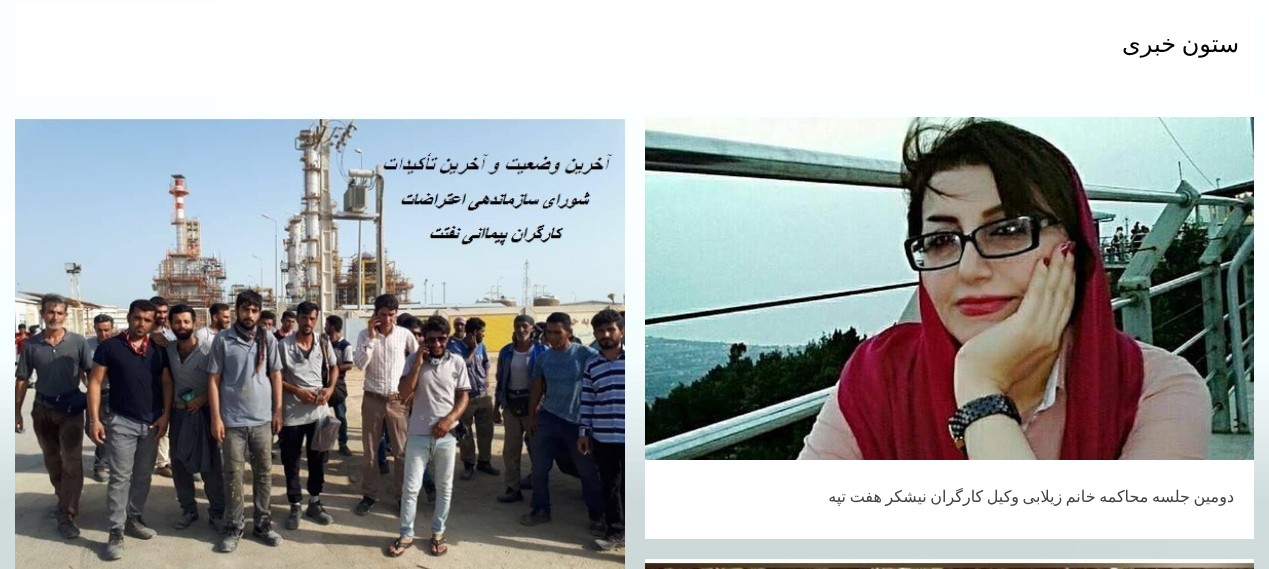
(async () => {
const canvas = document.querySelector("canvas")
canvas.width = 1269
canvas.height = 569
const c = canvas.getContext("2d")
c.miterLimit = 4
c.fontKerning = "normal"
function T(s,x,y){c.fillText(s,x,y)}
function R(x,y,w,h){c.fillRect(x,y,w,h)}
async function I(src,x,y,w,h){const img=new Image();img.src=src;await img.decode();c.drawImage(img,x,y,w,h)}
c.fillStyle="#fff"
R(0,0,1269,569)
await I("1.png",0,0,1269,569)
R(15,1,1239,96)
c.wordSpacing="-2px"
c.direction="rtl"
c.font="24px DejaVu Sans"
c.fillStyle="#000"
T("ستون خبری",1239,52)
c.fillStyle="#fff"
R(645,460,609,79)
await I("2.png",645,117,609,343)
c.wordSpacing="-1.5px"
c.font="16px DejaVu Sans"
c.fillStyle="#424242"
T("دومین جلسه محاکمه خانم زیلابی وکیل کارگران نیشکر هفت تپه",1234,502)
await I("3.png",15,117,610,452)
await I("4.png",645,559,609,10)
})()
